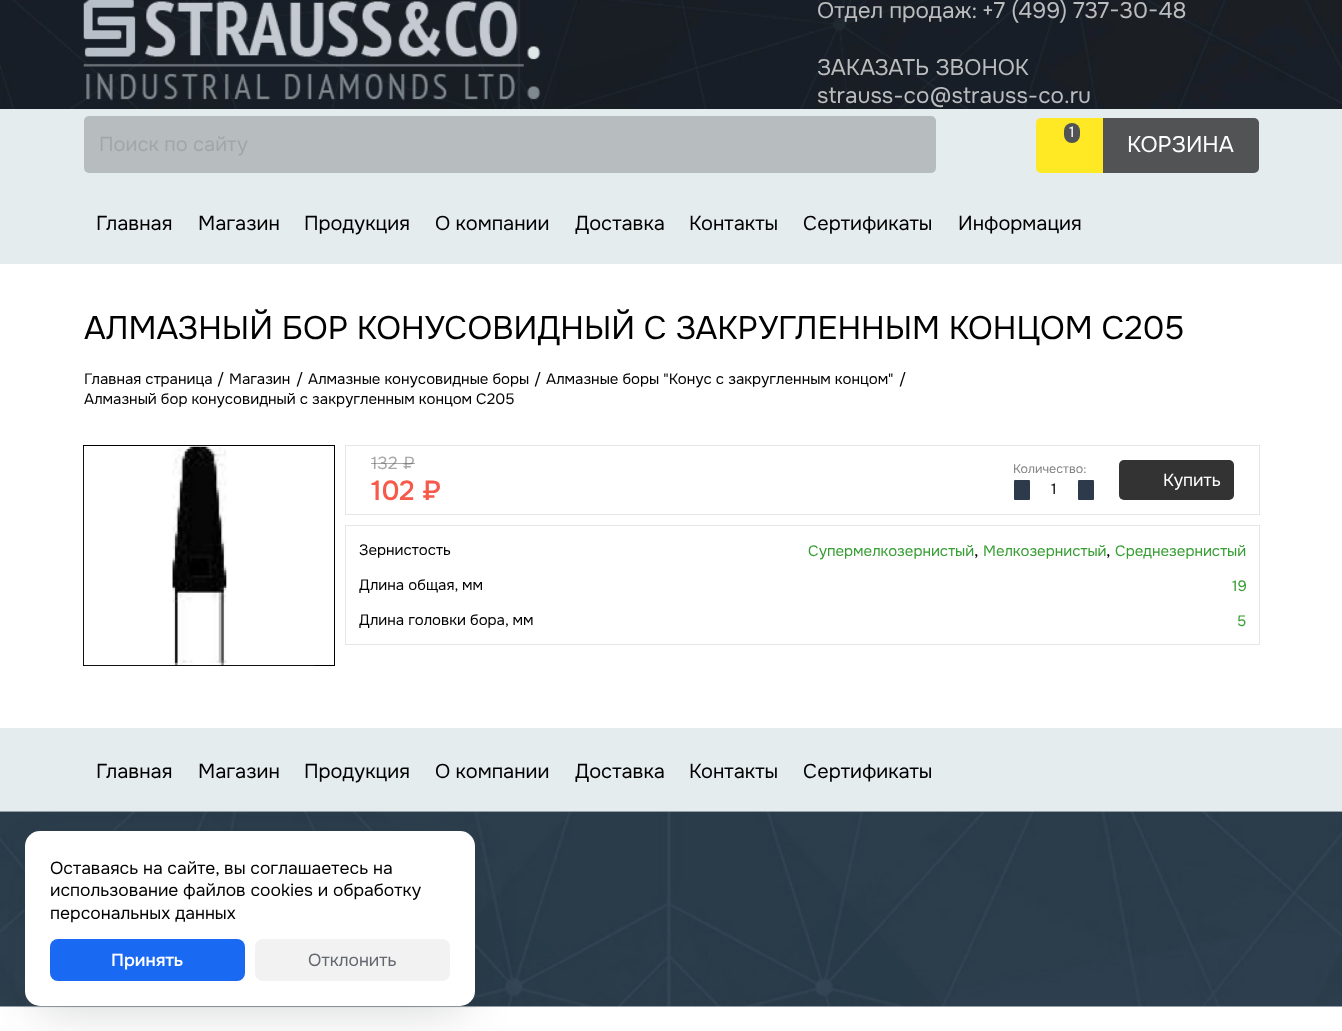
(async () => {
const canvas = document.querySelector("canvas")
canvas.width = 1342
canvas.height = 1031
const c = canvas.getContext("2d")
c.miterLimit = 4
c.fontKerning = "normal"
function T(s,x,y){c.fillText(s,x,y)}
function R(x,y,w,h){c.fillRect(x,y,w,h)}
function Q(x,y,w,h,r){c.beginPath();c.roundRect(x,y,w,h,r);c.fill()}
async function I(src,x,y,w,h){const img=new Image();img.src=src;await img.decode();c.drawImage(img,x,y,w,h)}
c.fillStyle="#fff"
R(0,0,1342,1031)
await I("1.png",0,0,1342,109)
await I("2.png",83,0,458,101)
c.font="22.5px Onest"
c.fillStyle="#babcbe"
T("Отдел продаж:",817,18)
T("+7 (499) 737-30-48",982,18)
T("ЗАКАЗАТЬ ЗВОНОК",817,75)
T("strauss-co@strauss-co.ru",817,103)
c.fillStyle="#e5eced"
R(0,109,1342,155)
c.fillStyle="#b7bdbe"
Q(84,116,852,57,5)
c.font="20px Onest"
c.fillStyle="#a2a6a7"
T("Поиск по сайту",99,151)
c.fillStyle="#ffe924"
c.beginPath()
c.roundRect(1036,118,67,55,[5,0,0,5])
c.fill()
c.fillStyle="#515355"
Q(1064,123,16,20,8)
c.font="15px Onest"
c.fillStyle="#fff"
T("1",1069,137)
c.fillStyle="#515355"
c.beginPath()
c.roundRect(1103,118,156,55,[0,5,5,0])
c.fill()
c.font="22.5px Onest"
c.fillStyle="#fff"
T("КОРЗИНА",1127,152)
c.font="20px Onest"
c.fillStyle="#000"
T("Главная",96,230)
T("Магазин",198,230)
T("Продукция",304,230)
T("О компании",435,230)
T("Доставка",575,230)
T("Контакты",689,230)
T("Сертификаты",803,230)
T("Информация",958,230)
c.font="32.5px Onest"
T("АЛМАЗНЫЙ БОР КОНУСОВИДНЫЙ С ЗАКРУГЛЕННЫМ КОНЦОМ C205",84,339)
c.font="15px Onest"
T("Главная страница",84,384)
T("/",217,384)
T("Магазин",229,384)
T("/",296,384)
T("Алмазные конусовидные боры",308,384)
T("/",534,384)
T("Алмазные боры \"Конус с закругленным концом\"",546,384)
T("/",899,384)
T("Алмазный бор конусовидный с закругленным концом C205",84,404)
c.strokeStyle="#000"
c.strokeRect(83.5,445.5,251,220)
await I("3.png",83,446,232,220)
c.strokeStyle="#e6e6e6"
c.strokeRect(345.5,445.5,914,69)
c.font="17.5px Onest"
c.fillStyle="#a8a9aa"
T("132 ₽",371,469)
c.fillStyle="#51535580"
R(371,463,44,1)
c.font="500 27.5px Onest"
c.fillStyle="#f7594b"
T("102 ₽",371,500)
c.font="12.5px Onest"
c.fillStyle="#808080"
T("Количество:",1013,473)
c.fillStyle="#2d3a4b"
Q(1014,480,16,20,1)
c.font="15px Onest"
c.fillStyle="#000"
T("1",1051,494)
c.fillStyle="#2d3a4b"
Q(1078,480,16,20,1)
c.fillStyle="#333"
Q(1119,460,115,40,5)
c.font="17.5px Onest"
c.fillStyle="#fff"
T("Купить",1163,486)
c.strokeRect(345.5,525.5,914,119)
c.font="15px Onest"
c.fillStyle="#000"
T("Зернистость",359,555)
c.fillStyle="#369e33"
T("Супермелкозернистый",808,556)
c.font="17.5px Onest"
c.fillStyle="#000"
T(",",974,556)
c.font="15px Onest"
c.fillStyle="#369e33"
T("Мелкозернистый",983,556)
c.font="17.5px Onest"
c.fillStyle="#000"
T(",",1106,556)
c.font="15px Onest"
c.fillStyle="#369e33"
T("Среднезернистый",1115,556)
c.fillStyle="#000"
T("Длина общая, мм",359,590)
c.fillStyle="#369e33"
T("19",1232,591)
c.fillStyle="#000"
T("Длина головки бора, мм",359,625)
c.fillStyle="#369e33"
T("5",1237,626)
c.fillStyle="#e5eced"
R(0,728,1342,83)
c.font="20px Onest"
c.fillStyle="#000"
T("Главная",96,778)
T("Магазин",198,778)
T("Продукция",304,778)
T("О компании",435,778)
T("Доставка",575,778)
T("Контакты",689,778)
T("Сертификаты",803,778)
await I("4.png",0,811,1342,196)
c.strokeStyle="#272b330a"
c.strokeRect(24.5,830.5,451,177)
c.fillStyle="#272b3333"
c.filter="blur(25px)"
c.beginPath()
c.roundRect(38,859,425,150,2.5)
c.fill()
c.filter="none"
c.fillStyle="#fff"
Q(25,831,450,175,15)
c.font="17.5px Onest"
c.fillStyle="#000"
T("Оставаясь на сайте, вы соглашаетесь на",50,874)
T("использование файлов cookies и обработку",50,896)
T("персональных данных",50,919)
c.fillStyle="#1a69f2"
Q(50,939,195,42,8)
c.font="500 17.5px Onest"
c.fillStyle="#fff"
T("Принять",111,966)
c.fillStyle="#f2f2f3"
Q(255,939,195,42,8)
c.font="17.5px Onest"
c.fillStyle="#64676d"
T("Отклонить",308,966)
})()
